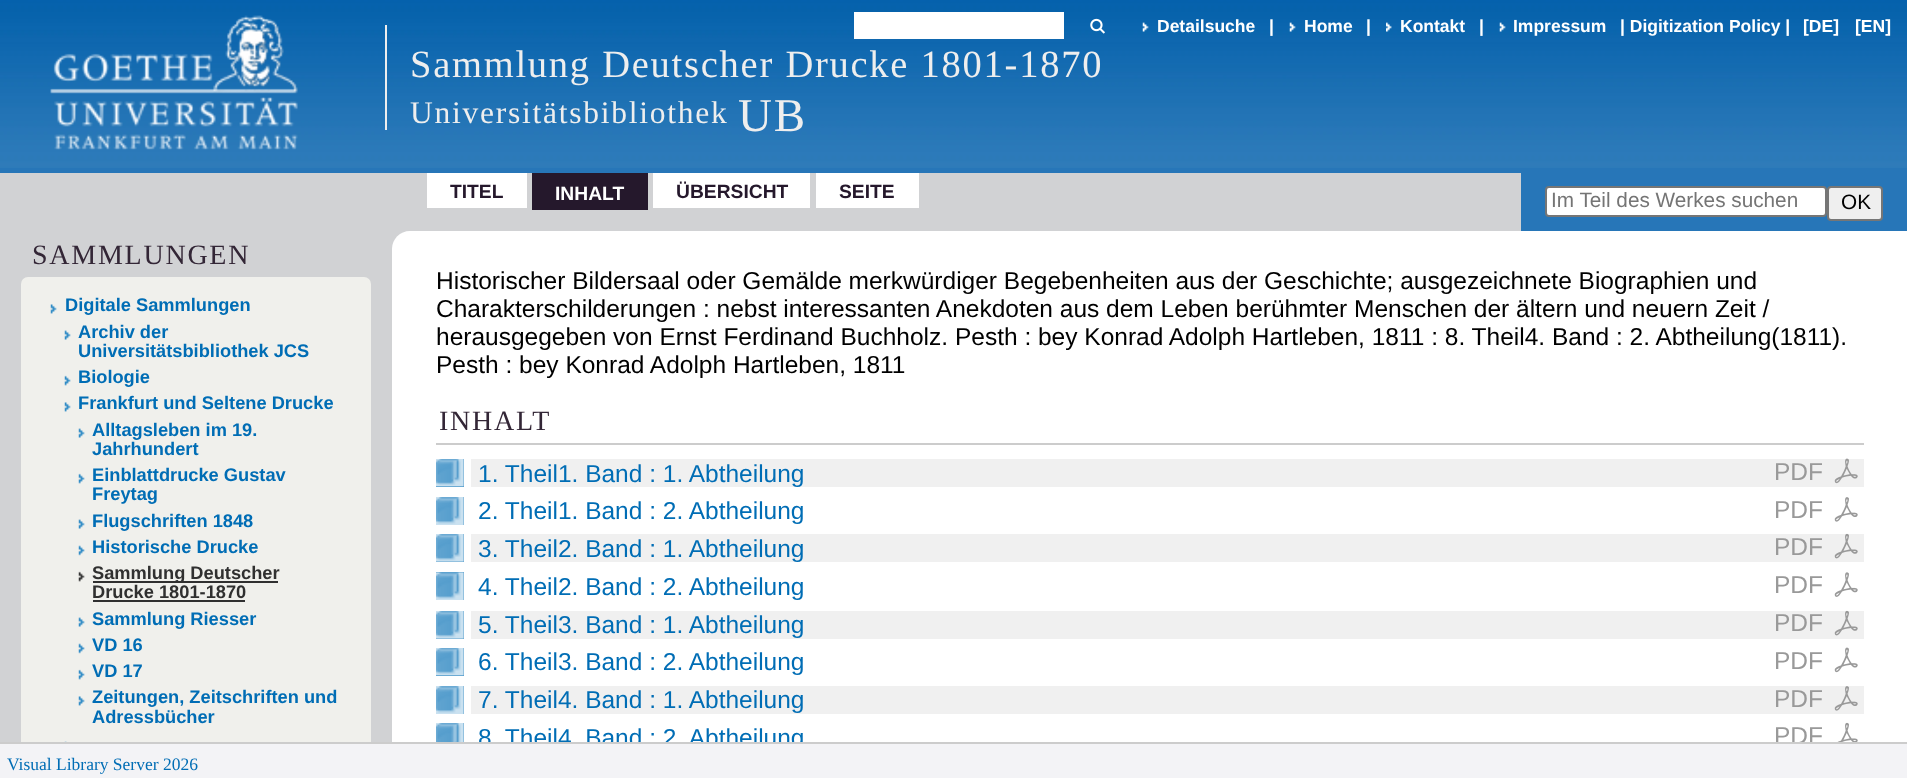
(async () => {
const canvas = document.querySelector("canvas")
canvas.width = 1907
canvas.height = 778
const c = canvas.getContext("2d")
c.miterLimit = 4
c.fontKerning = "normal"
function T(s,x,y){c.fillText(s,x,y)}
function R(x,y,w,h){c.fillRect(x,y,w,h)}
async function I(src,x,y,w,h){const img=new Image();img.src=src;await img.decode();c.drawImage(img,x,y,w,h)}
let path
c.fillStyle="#2776b8"
R(0,0,1907,778)
await I("1.png",0,0,1907,168)
await I("2.png",50,15,248,135)
c.fillStyle="#fff"
R(854,12,210,27)
await I("3.png",1090,18,15,16)
await I("4.png",1142,22,7,10)
c.font="bold 17.5px Liberation Sans"
T("Detailsuche",1157,32)
T("|",1269,32)
await I("5.png",1289,22,7,10)
T("Home",1304,32)
T("|",1366,32)
await I("6.png",1386,22,6,10)
T("Kontakt",1400,32)
T("|",1479,32)
await I("7.png",1499,22,7,10)
T("Impressum",1513,32)
T("| Digitization Policy |",1620,32)
T("[DE]",1803,32)
T("[EN]",1855,32)
c.fillStyle="#eee"
R(385,25,2,105)
c.letterSpacing="1.75px"
c.font="38.5px Liberation Serif"
T("Sammlung Deutscher Drucke 1801-1870",410,77)
c.font="31.5px Liberation Serif"
T("Universitätsbibliothek",410,123)
c.font="47px Liberation Serif"
T("UB",738,131)
c.fillStyle="#d1d2d4"
R(0,173,1521,58)
c.fillStyle="#fff"
R(427,173,100,35)
c.letterSpacing="0px"
c.font="bold 19.25px Liberation Sans"
c.fillStyle="#25182c"
T("TITEL",450,198)
R(532,173,116,37)
c.fillStyle="#fff"
T("INHALT",555,200)
R(653,173,157,35)
c.fillStyle="#25182c"
T("ÜBERSICHT",676,198)
c.fillStyle="#fff"
R(816,173,103,35)
c.fillStyle="#25182c"
T("SEITE",839,198)
c.fillStyle="#fff"
c.beginPath()
c.roundRect(1546,187,280,29,3)
c.fill()
c.strokeStyle="#767676"
c.lineWidth=2
c.stroke()
c.font="20.75px Liberation Sans"
c.fillStyle="#757575"
T("Im Teil des Werkes suchen",1551,207)
c.fillStyle="#efefef"
c.beginPath()
c.roundRect(1828,187,54,33,3)
c.fill()
c.stroke()
c.fillStyle="#000"
T("OK",1841,209)
c.fillStyle="#d1d2d4"
R(0,231,410,511)
c.letterSpacing="1.75px"
c.font="28px Liberation Serif"
c.fillStyle="#332636"
T("SAMMLUNGEN",32,264)
c.fillStyle="#f0f0ec"
c.beginPath()
c.roundRect(22,278,348,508,6)
c.fill()
c.strokeStyle="#f0f0ec"
c.stroke()
await I("8.png",50,304,7,10)
c.letterSpacing="0px"
c.font="bold 18.25px Liberation Sans"
c.fillStyle="#006db5"
T("Digitale Sammlungen",65,311)
await I("9.png",64,330,7,10)
T("Archiv der",78,338)
T("Universitätsbibliothek JCS",78,357)
await I("10.png",64,375,7,11)
T("Biologie",78,383)
await I("8.png",64,402,7,10)
T("Frankfurt und Seltene Drucke",78,409)
await I("11.png",78,428,7,10)
T("Alltagsleben im 19.",92,436)
T("Jahrhundert",92,455)
await I("12.png",78,473,7,11)
T("Einblattdrucke Gustav",92,481)
T("Freytag",92,500)
await I("11.png",78,519,7,10)
T("Flugschriften 1848",92,527)
await I("13.png",78,545,7,11)
T("Historische Drucke",92,553)
await I("14.png",78,571,7,11)
c.fillStyle="#303030"
R(93,581,185,2)
T("Sammlung Deutscher",92,579)
T("Drucke 1801-1870",92,598)
R(93,600,152,2)
await I("11.png",78,617,7,10)
c.fillStyle="#006db5"
T("Sammlung Riesser",92,625)
await I("13.png",78,643,7,11)
T("VD 16",92,651)
await I("12.png",78,669,7,11)
T("VD 17",92,677)
await I("15.png",78,696,7,10)
T("Zeitungen, Zeitschriften und",92,703)
T("Adressbücher",92,723)
await I("16.png",64,741,3,1)
c.fillStyle="#fff"
path = new Path2D("M410 231h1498v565h-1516v-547c0-10 8-18 18-18z")
c.fill(path)
c.font="24.5px Liberation Sans"
c.fillStyle="#000"
T("Historischer Bildersaal oder Gemälde merkwürdiger Begebenheiten aus der Geschichte; ausgezeichnete Biographien und",436,289)
T("Charakterschilderungen : nebst interessanten Anekdoten aus dem Leben berühmter Menschen der ältern und neuern Zeit /",436,317)
T("herausgegeben von Ernst Ferdinand Buchholz. Pesth : bey Konrad Adolph Hartleben, 1811 : 8. Theil4. Band : 2. Abtheilung(1811).",436,345)
T("Pesth : bey Konrad Adolph Hartleben, 1811",436,373)
c.fillStyle="#ccc"
R(436,443,1428,2)
c.letterSpacing="1.75px"
c.font="28px Liberation Serif"
c.fillStyle="#332636"
T("INHALT",439,430)
c.fillStyle="#f0f0f0"
R(471,459,1393,28)
c.fillStyle="#4d99cb"
R(436,459,28,28)
await I("17.png",436,459,28,28)
c.letterSpacing="0px"
c.font="24.5px Liberation Sans"
c.fillStyle="#006db5"
T("1. Theil1. Band : 1. Abtheilung",478,482)
c.fillStyle="#999"
T("PDF",1774,480)
await I("18.png",1834,458,24,26)
c.fillStyle="#4d99cb"
R(436,497,28,28)
await I("19.png",436,497,28,28)
c.fillStyle="#006db5"
T("2. Theil1. Band : 2. Abtheilung",478,519)
c.fillStyle="#999"
T("PDF",1774,518)
await I("20.png",1834,497,24,25)
c.fillStyle="#f0f0f0"
R(471,534,1393,28)
c.fillStyle="#4d99cb"
R(436,534,28,28)
await I("21.png",436,534,28,28)
c.fillStyle="#006db5"
T("3. Theil2. Band : 1. Abtheilung",478,557)
c.fillStyle="#999"
T("PDF",1774,555)
await I("22.png",1834,533,24,26)
c.fillStyle="#4d99cb"
R(436,572,28,28)
await I("23.png",436,572,28,28)
c.fillStyle="#006db5"
T("4. Theil2. Band : 2. Abtheilung",478,595)
c.fillStyle="#999"
T("PDF",1774,593)
await I("24.png",1834,572,24,25)
c.fillStyle="#f0f0f0"
R(471,611,1393,28)
c.fillStyle="#4d99cb"
R(436,611,28,28)
await I("21.png",436,611,28,28)
c.fillStyle="#006db5"
T("5. Theil3. Band : 1. Abtheilung",478,633)
c.fillStyle="#999"
T("PDF",1774,631)
await I("22.png",1834,610,24,26)
c.fillStyle="#4d99cb"
R(436,648,28,28)
await I("17.png",436,648,28,28)
c.fillStyle="#006db5"
T("6. Theil3. Band : 2. Abtheilung",478,670)
c.fillStyle="#999"
T("PDF",1774,669)
await I("25.png",1834,647,24,26)
c.fillStyle="#f0f0f0"
R(471,686,1393,28)
c.fillStyle="#4d99cb"
R(436,686,28,28)
await I("19.png",436,686,28,28)
c.fillStyle="#006db5"
T("7. Theil4. Band : 1. Abtheilung",478,708)
c.fillStyle="#999"
T("PDF",1774,707)
await I("26.png",1834,686,24,25)
c.fillStyle="#4d99cb"
R(436,723,28,19)
await I("27.png",436,723,28,19)
c.fillStyle="#006db5"
T("8. Theil4. Band : 2. Abtheilung",478,746)
c.fillStyle="#999"
T("PDF",1774,744)
await I("28.png",1837,722,21,20)
c.fillStyle="#f3f3f6"
R(0,744,1907,34)
c.fillStyle="#ccc"
R(0,742,1907,2)
c.font="17.5px Liberation Serif"
c.fillStyle="#006db5"
T("Visual Library Server 2026",7,770)
})()
